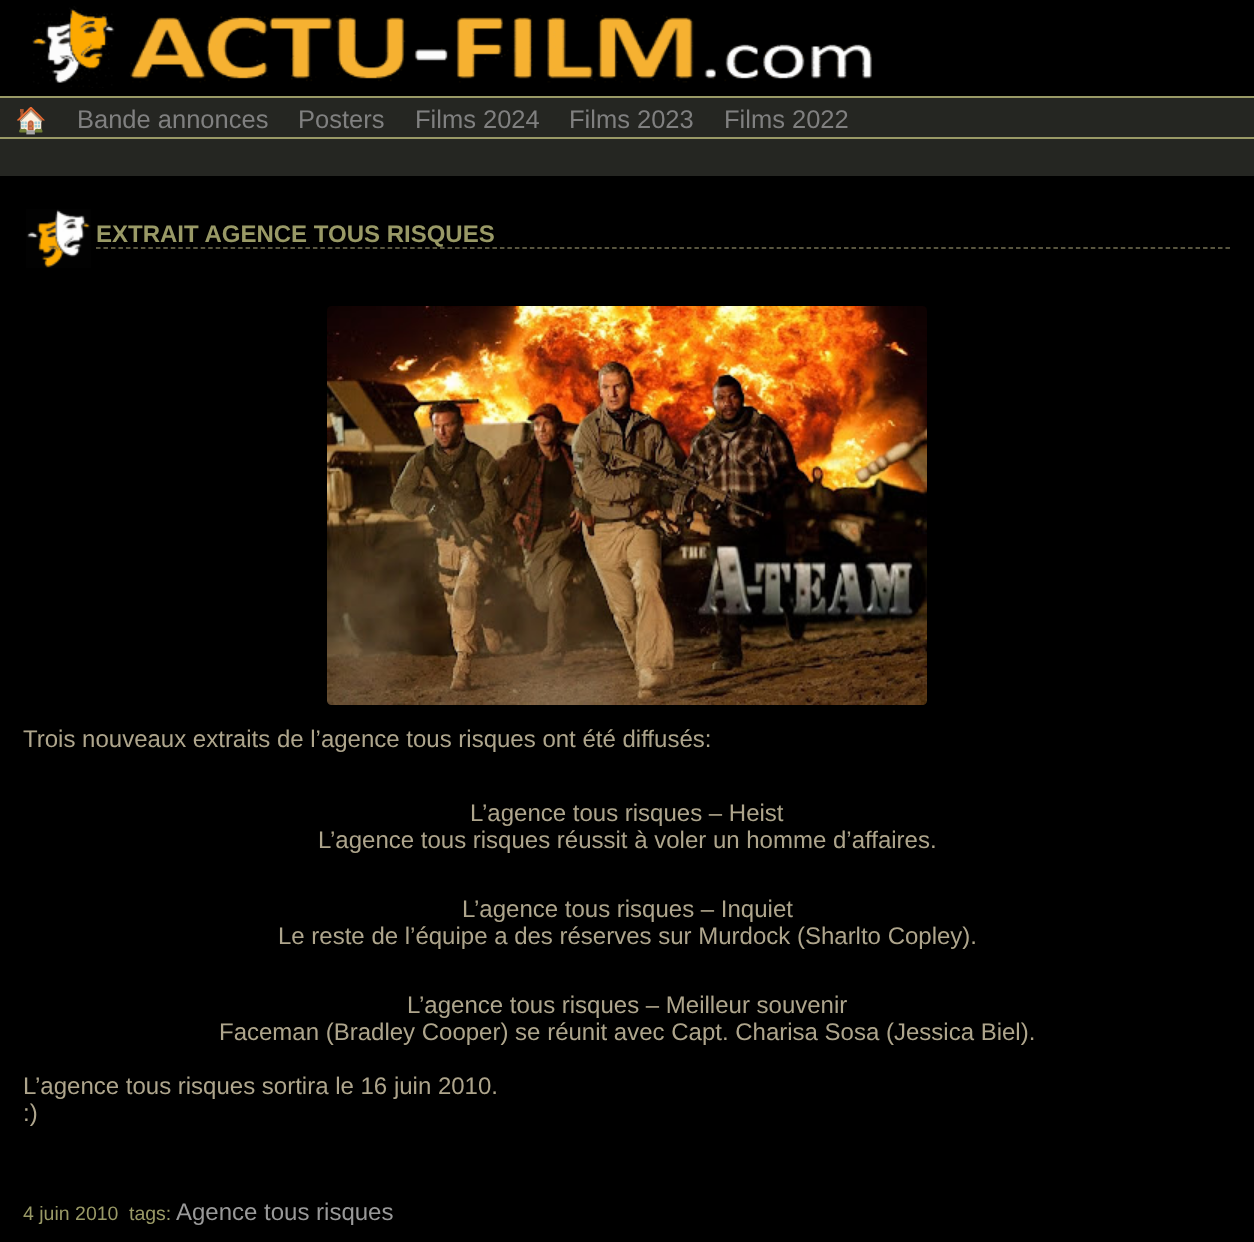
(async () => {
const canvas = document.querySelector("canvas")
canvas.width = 1254
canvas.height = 1242
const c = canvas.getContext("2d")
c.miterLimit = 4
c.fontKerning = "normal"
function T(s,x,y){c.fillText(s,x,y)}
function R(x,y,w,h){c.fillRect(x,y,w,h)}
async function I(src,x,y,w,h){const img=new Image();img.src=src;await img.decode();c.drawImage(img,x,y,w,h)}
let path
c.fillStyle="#252622"
R(0,0,1254,1242)
c.fillStyle="#000"
R(0,0,1254,96)
await I("1.png",32,6,840,82)
c.fillStyle="#996"
R(0,96,1254,2)
R(0,137,1254,2)
c.font="25.5px Noto Color Emoji"
c.fillStyle="#808080"
T("🏠",15,129)
c.font="25.5px Liberation Sans"
T("Bande annonces",77,128)
T("Posters",298,128)
T("Films 2024",415,128)
T("Films 2023",569,128)
T("Films 2022",724,128)
c.fillStyle="#000"
R(0,176,1254,1066)
await I("2.png",26,209,65,59)
path = new Path2D("M96 248h1135.5")
c.strokeStyle="#767154"
c.lineWidth=1.5
c.setLineDash([4.5,2.98])
c.stroke(path)
c.font="bold 24px Liberation Sans"
c.fillStyle="#996"
T("EXTRAIT AGENCE TOUS RISQUES",96,242)
await I("3.png",327,306,600,399)
c.font="24px Liberation Sans"
c.fillStyle="#aea58c"
T("Trois nouveaux extraits de l’agence tous risques ont été diffusés:",23,747)
T("L’agence tous risques – Heist",470,821)
T("L’agence tous risques réussit à voler un homme d’affaires.",318,848)
T("L’agence tous risques – Inquiet",462,917)
T("Le reste de l’équipe a des réserves sur Murdock (Sharlto Copley).",278,944)
T("L’agence tous risques – Meilleur souvenir",407,1013)
T("Faceman (Bradley Cooper) se réunit avec Capt. Charisa Sosa (Jessica Biel).",219,1040)
T("L’agence tous risques sortira le 16 juin 2010.",23,1094)
T(":)",23,1121)
c.font="19.5px Liberation Sans"
c.fillStyle="#996"
T("4 juin 2010",23,1220)
T("tags:",129,1220)
c.font="24px Liberation Sans"
c.fillStyle="#999"
T("Agence tous risques",176,1220)
})()
